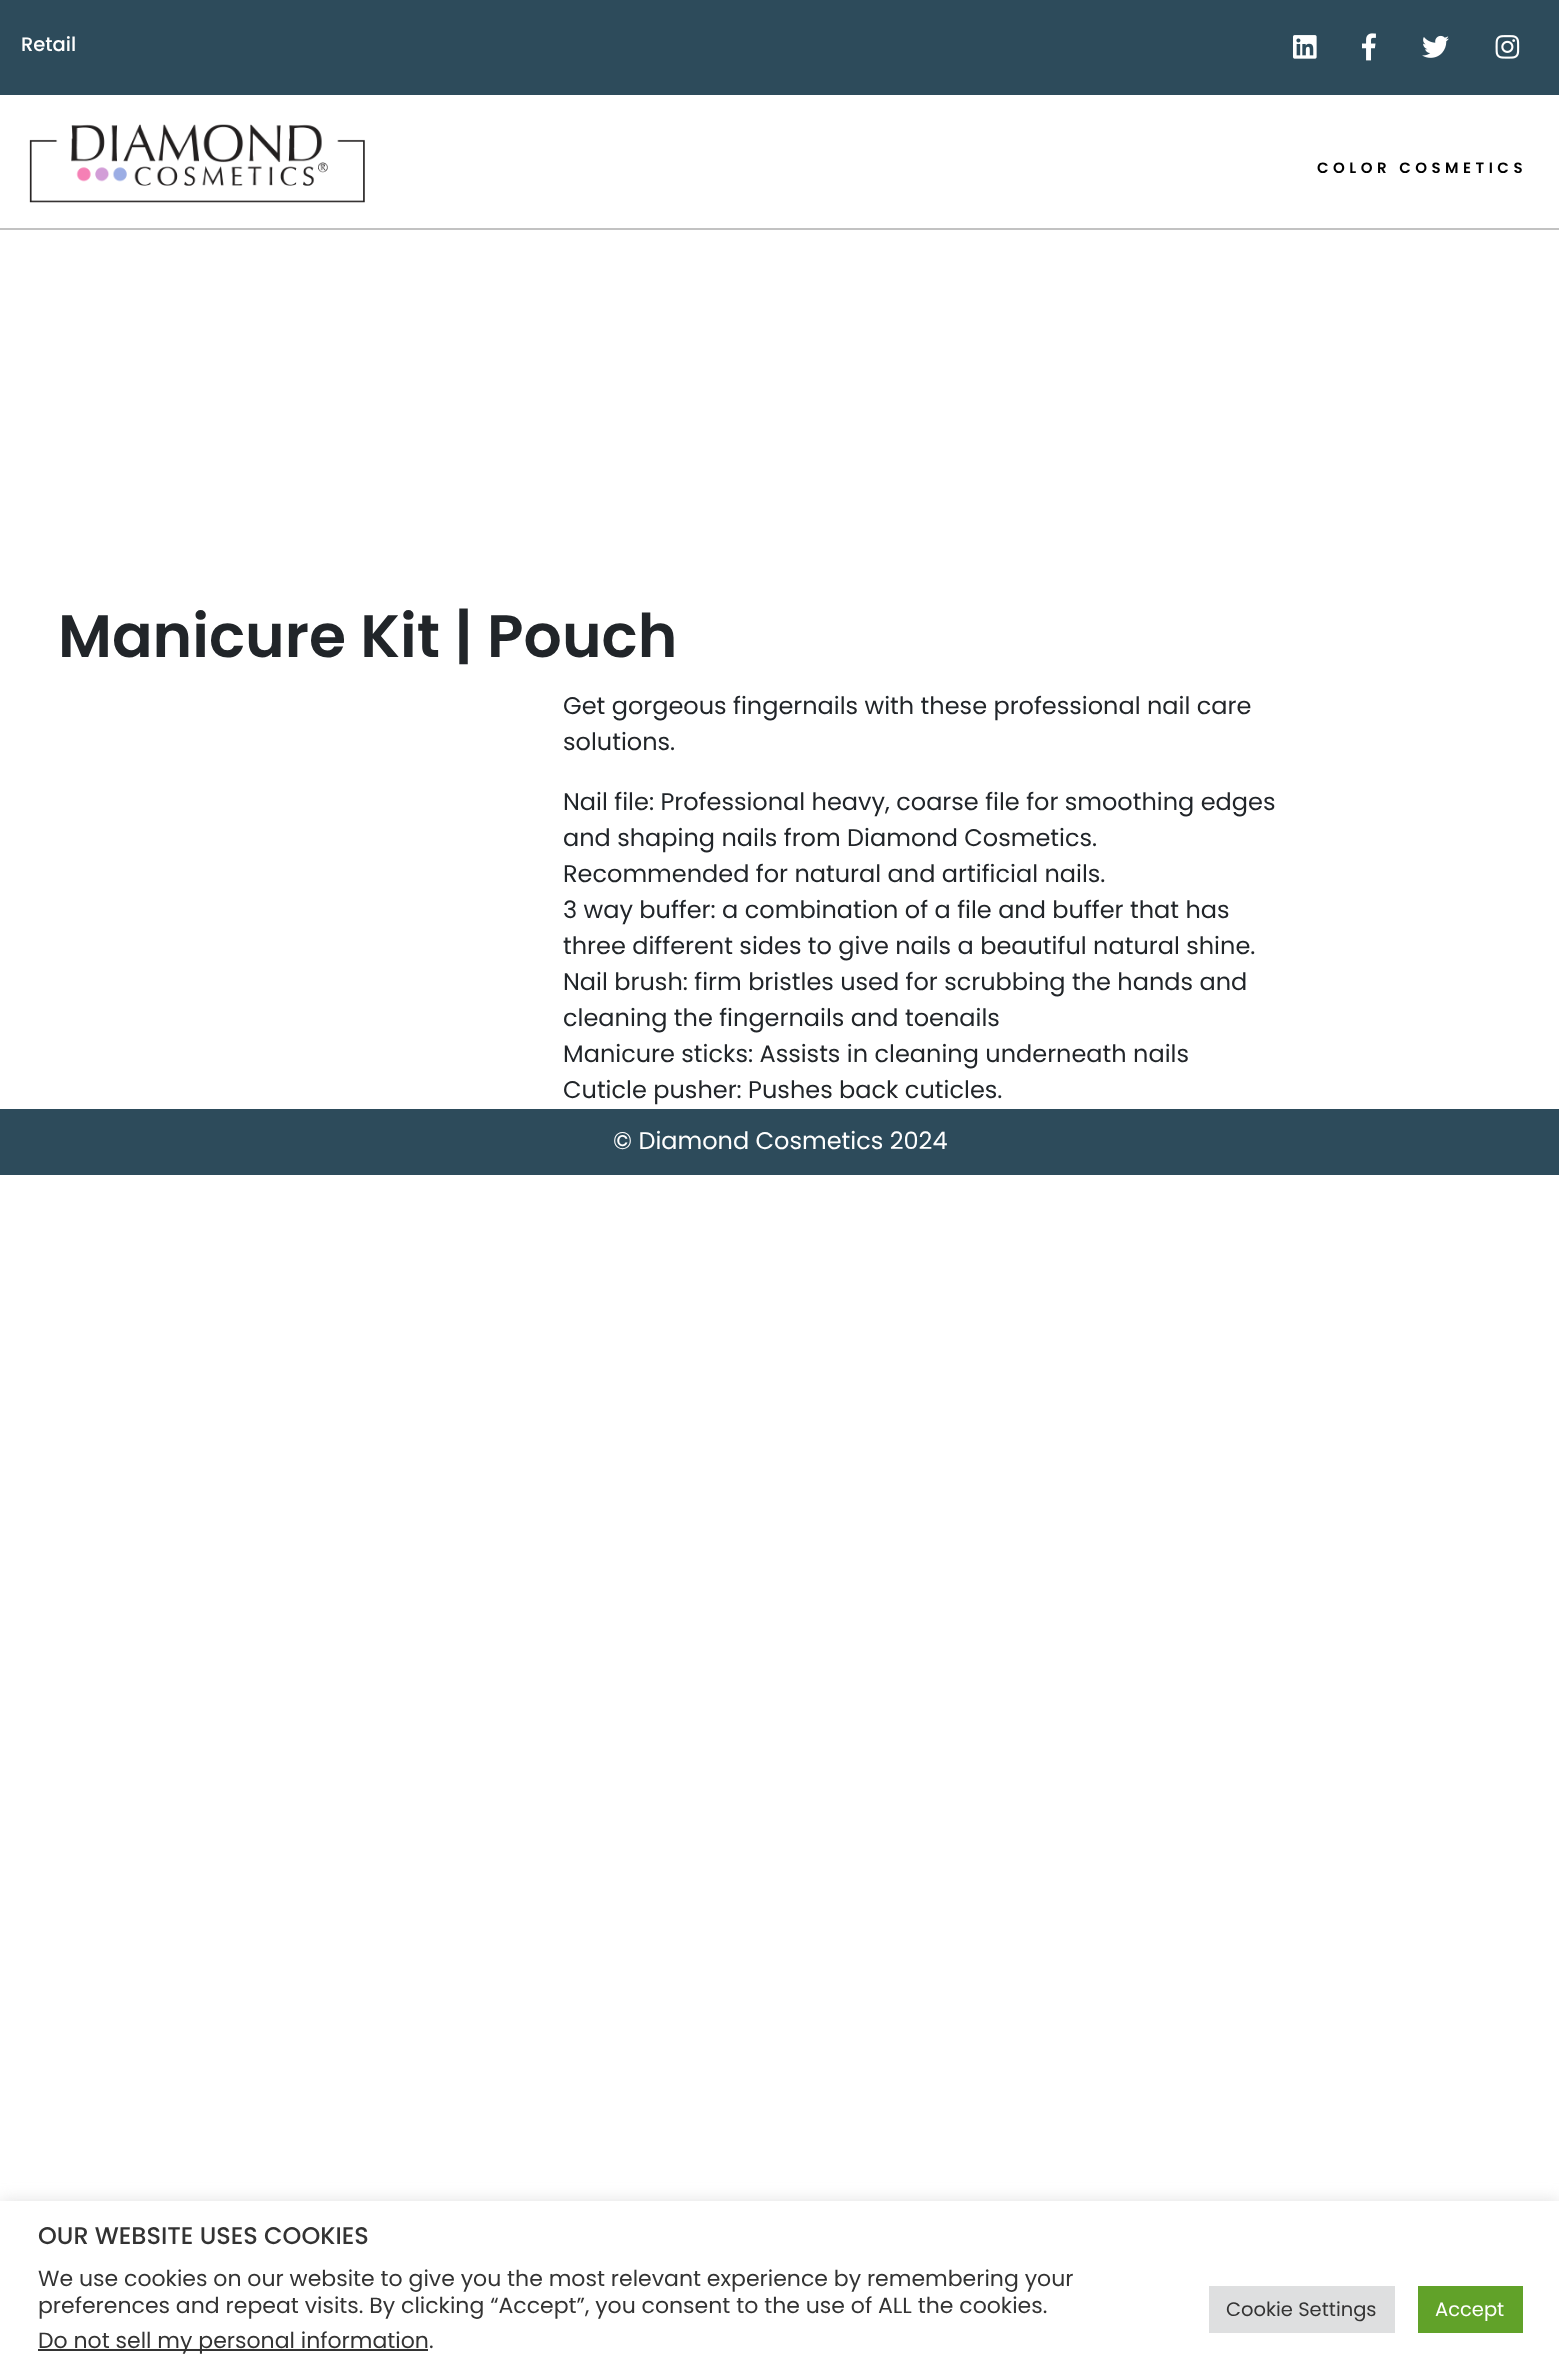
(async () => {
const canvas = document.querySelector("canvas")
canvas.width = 1559
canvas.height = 2374
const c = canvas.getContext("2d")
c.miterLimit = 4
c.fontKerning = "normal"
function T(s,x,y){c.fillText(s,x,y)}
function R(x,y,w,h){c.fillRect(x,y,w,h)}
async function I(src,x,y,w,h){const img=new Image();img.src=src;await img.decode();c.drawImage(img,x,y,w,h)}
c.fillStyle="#fff"
R(0,0,1559,2374)
c.fillStyle="#2d4b5b"
R(0,0,1559,95)
c.font="500 19.5px Poppins"
c.fillStyle="#fff"
T("Retail",21,51)
await I("1.png",1293,35,24,24)
await I("2.png",1362,33,14,28)
await I("3.png",1422,35,27,23)
await I("4.png",1495,35,25,24)
c.fillStyle="#c2c2c2"
R(0,228,1559,2)
await I("5.png",29,124,336,79)
c.letterSpacing="4.5px"
c.font="600 15px Poppins"
c.fillStyle="#000"
T("COLOR COSMETICS",1317,173)
c.letterSpacing="0px"
c.font="600 60px Poppins"
c.fillStyle="#212529"
T("Manicure Kit | Pouch",58,657)
c.font="24px Poppins"
T("Get gorgeous fingernails with these professional nail care",563,714)
T("solutions.",563,750)
T("Nail file: Professional heavy, coarse file for smoothing edges",563,810)
T("and shaping nails from Diamond Cosmetics.",563,846)
T("Recommended for natural and artificial nails.",563,882)
T("3 way buffer: a combination of a file and buffer that has",563,918)
T("three different sides to give nails a beautiful natural shine.",563,954)
T("Nail brush: firm bristles used for scrubbing the hands and",563,990)
T("cleaning the fingernails and toenails",563,1026)
T("Manicure sticks: Assists in cleaning underneath nails",563,1062)
T("Cuticle pusher: Pushes back cuticles.",563,1098)
c.fillStyle="#2d4b5b"
R(0,1109,1559,66)
c.fillStyle="#fff"
T("© Diamond Cosmetics 2024",613,1149)
c.fillStyle="#acabab4d"
c.filter="blur(7.5px)"
c.beginPath()
c.rect(0,2199,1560,174)
c.fill()
c.filter="none"
c.fillStyle="#fff"
R(0,2201,1559,173)
c.font="500 24px Poppins"
c.fillStyle="#333"
T("OUR WEBSITE USES COOKIES",38,2244)
c.font="22px Poppins"
T("We use cookies on our website to give you the most relevant experience by remembering your",38,2286)
T("preferences and repeat visits. By clicking “Accept”, you consent to the use of ALL the cookies.",38,2313)
R(38,2349,390,2)
T("Do not sell my personal information.",38,2348)
c.fillStyle="#dedfe0"
R(1209,2286,186,47)
c.font="19.5px Poppins"
c.fillStyle="#333"
T("Cookie Settings",1226,2316)
c.fillStyle="#61a229"
R(1418,2286,105,47)
c.fillStyle="#fff"
T("Accept",1435,2316)
})()
